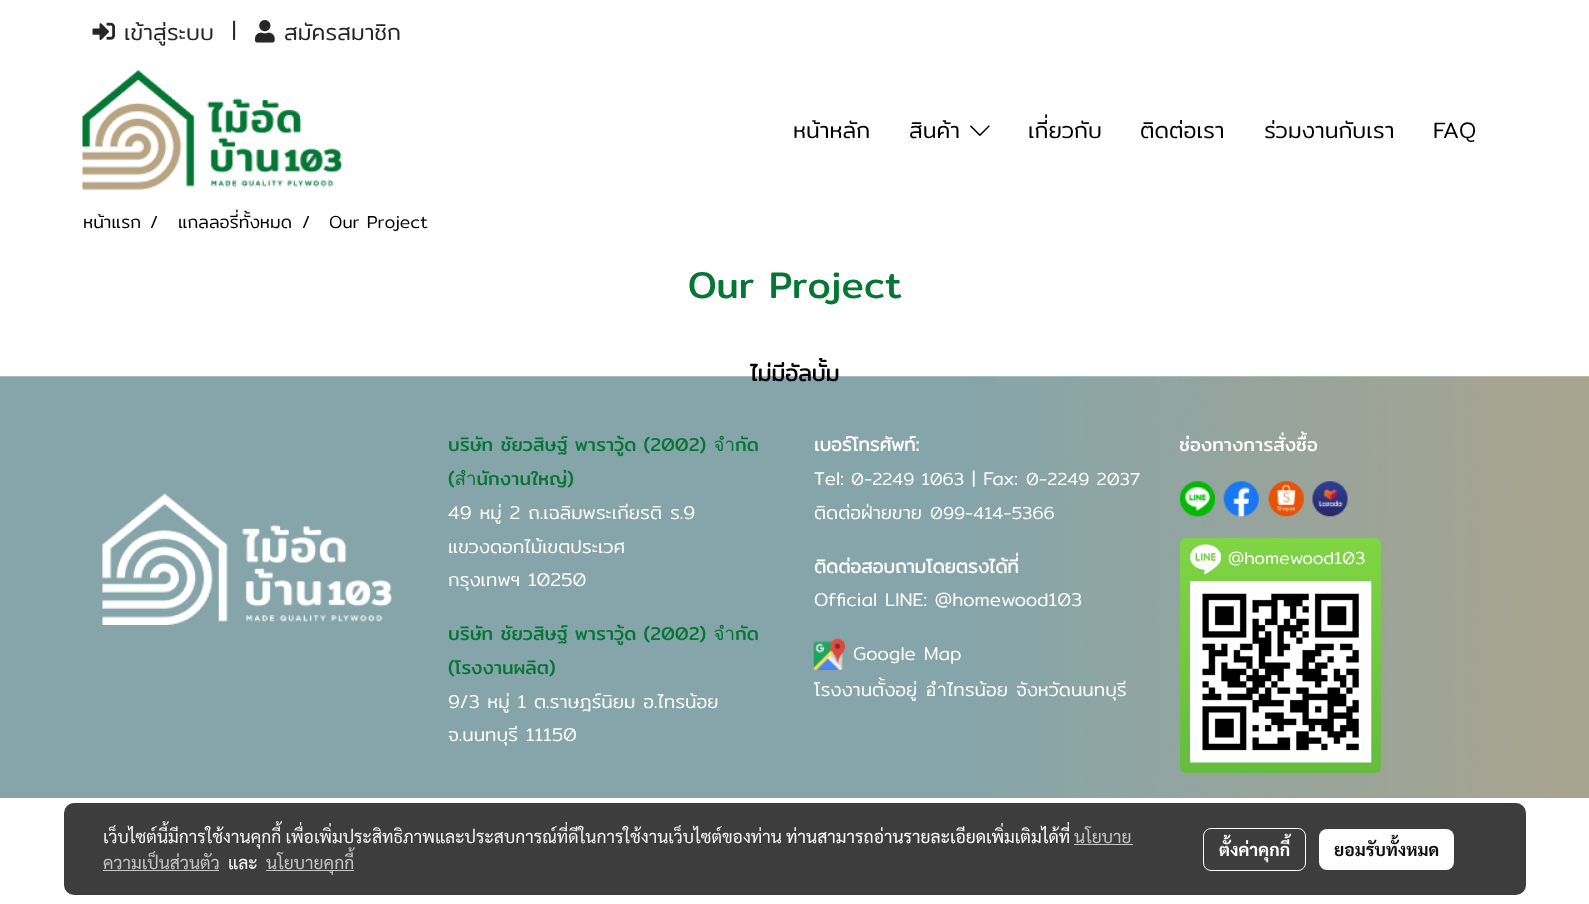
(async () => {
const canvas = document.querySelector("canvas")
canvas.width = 1589
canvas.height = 904
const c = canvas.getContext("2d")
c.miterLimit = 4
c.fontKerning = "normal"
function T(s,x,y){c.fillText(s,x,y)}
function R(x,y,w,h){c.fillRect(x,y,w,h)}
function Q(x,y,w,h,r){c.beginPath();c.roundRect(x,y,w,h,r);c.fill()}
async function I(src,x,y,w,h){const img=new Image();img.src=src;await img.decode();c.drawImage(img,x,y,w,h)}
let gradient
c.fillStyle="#fff"
R(0,0,1589,904)
await I("1.png",92,22,23,18)
c.font="300 22.5px Mitr"
c.fillStyle="#262626"
T("เข้าสู่ระบบ",124,40)
T("|",232,38)
await I("2.png",255,20,20,23)
T("สมัครสมาชิก",284,40)
await I("3.png",82,70,260,120)
c.fillStyle="#000"
T("หน้าหลัก",793,138)
T("สินค้า",909,138)
await I("4.png",970,125,20,11)
T("เกี่ยวกับ",1028,138)
T("ติดต่อเรา",1140,138)
T("ร่วมงานกับเรา",1264,138)
T("FAQ",1433,138)
c.font="300 17.5px Mitr"
T("หน้าแรก",83,228)
T("/",150,228)
T("แกลลอรี่ทั้งหมด",178,228)
T("/",302,228)
T("Our Project",329,228)
c.font="37.5px Mitr"
c.fillStyle="#047734"
T("Our Project",688,298)
await I("5.png",0,376,1589,422)
c.font="bold 22.5px Mitr"
c.fillStyle="#000"
T("ไม่มีอัลบั้ม",750,381)
await I("6.png",102,493,290,132)
c.font="18.75px Mitr"
c.fillStyle="#047734"
T("บริษัท ชัยวสิษฐ์ พาราวู้ด (2002) จำกัด",448,451)
T("(สำนักงานใหญ่)",448,485)
c.font="300 18.75px Mitr"
c.fillStyle="#fff"
T("49 หมู่ 2 ถ.เฉลิมพระเกียรติ ร.9",448,519)
T("แขวงดอกไม้เขตประเวศ",448,553)
T("กรุงเทพฯ 10250",448,586)
c.font="18.75px Mitr"
c.fillStyle="#047734"
T("บริษัท ชัยวสิษฐ์ พาราวู้ด (2002) จำกัด",448,640)
T("(โรงงานผลิต)",448,674)
c.font="300 18.75px Mitr"
c.fillStyle="#fff"
T("9/3 หมู่ 1 ต.ราษฎร์นิยม อ.ไทรน้อย",448,708)
T("จ.นนทบุรี 11150",448,741)
c.font="bold 18.75px Mitr"
T("เบอร์โทรศัพท์:",814,451)
c.font="300 18.75px Mitr"
T("Tel:",814,485)
c.font="300 17.5px Mitr"
T("0-2249 1063",851,485)
c.font="300 18.75px Mitr"
T("| Fax:",972,485)
c.font="300 17.5px Mitr"
T("0-2249 2037",1026,485)
c.font="300 18.75px Mitr"
T("ติดต่อฝ่ายขาย",814,519)
c.font="300 17.5px Mitr"
T("099-414-5366",930,519)
c.font="bold 18.75px Mitr"
T("ติดต่อสอบถามโดยตรงได้ที่",814,573)
c.font="300 18.75px Mitr"
T("Official LINE: @homewood103",814,606)
await I("7.png",813,638,32,32)
T("Google Map",853,660)
T("โรงงานตั้งอยู่ อำไทรน้อย จังหวัดนนทบุรี",814,696)
c.font="18.75px Mitr"
T("ช่องทางการสั่งซื้อ",1179,451)
await I("8.png",1180,481,35,36)
await I("9.png",1223,481,36,36)
await I("10.png",1268,481,36,36)
await I("11.png",1312,481,36,36)
gradient = c.createLinearGradient(1281,538,1281,773)
gradient.addColorStop(0,"#80d544")
gradient.addColorStop(1,"#65bc3e")
c.fillStyle = gradient
Q(1180,538,201,235,6)
await I("12.png",1190,544,31,31)
c.font="300 17.5px Mitr"
c.fillStyle="#fff"
T("@homewood103",1228,564)
await I("13.png",1190,581,182,182)
c.fillStyle="#000000c2"
Q(64,803,1462,92,10)
c.font="17.5px Sarabun"
c.fillStyle="#f5f5f5"
T("เว็บไซต์นี้มีการใช้งานคุกกี้ เพื่อเพิ่มประสิทธิภาพและประสบการณ์ที่ดีในการใช้งานเว็บไซต์ของท่าน",103,843)
c.fillStyle="#fff"
T("ท่านสามารถอ่านรายละเอียดเพิ่มเติมได้ที่",786,843)
c.fillStyle="#c5c5c5"
T("นโยบาย",1074,843)
R(1074,844,59,1)
T("ความเป็นส่วนตัว",103,869)
R(103,870,116,1)
c.fillStyle="#fff"
T("และ",228,869)
c.fillStyle="#c5c5c5"
R(266,870,88,1)
T("นโยบายคุกกี้",266,869)
c.beginPath()
c.roundRect(1203.5,828.5,102,42,7.5)
c.strokeStyle="#fff"
c.stroke()
c.font="bold 17.5px Sarabun"
c.fillStyle="#fff"
T("ตั้งค่าคุกกี้",1219,856)
Q(1319,829,135,41,8)
c.fillStyle="#0d0d0d"
T("ยอมรับทั้งหมด",1334,856)
})()
